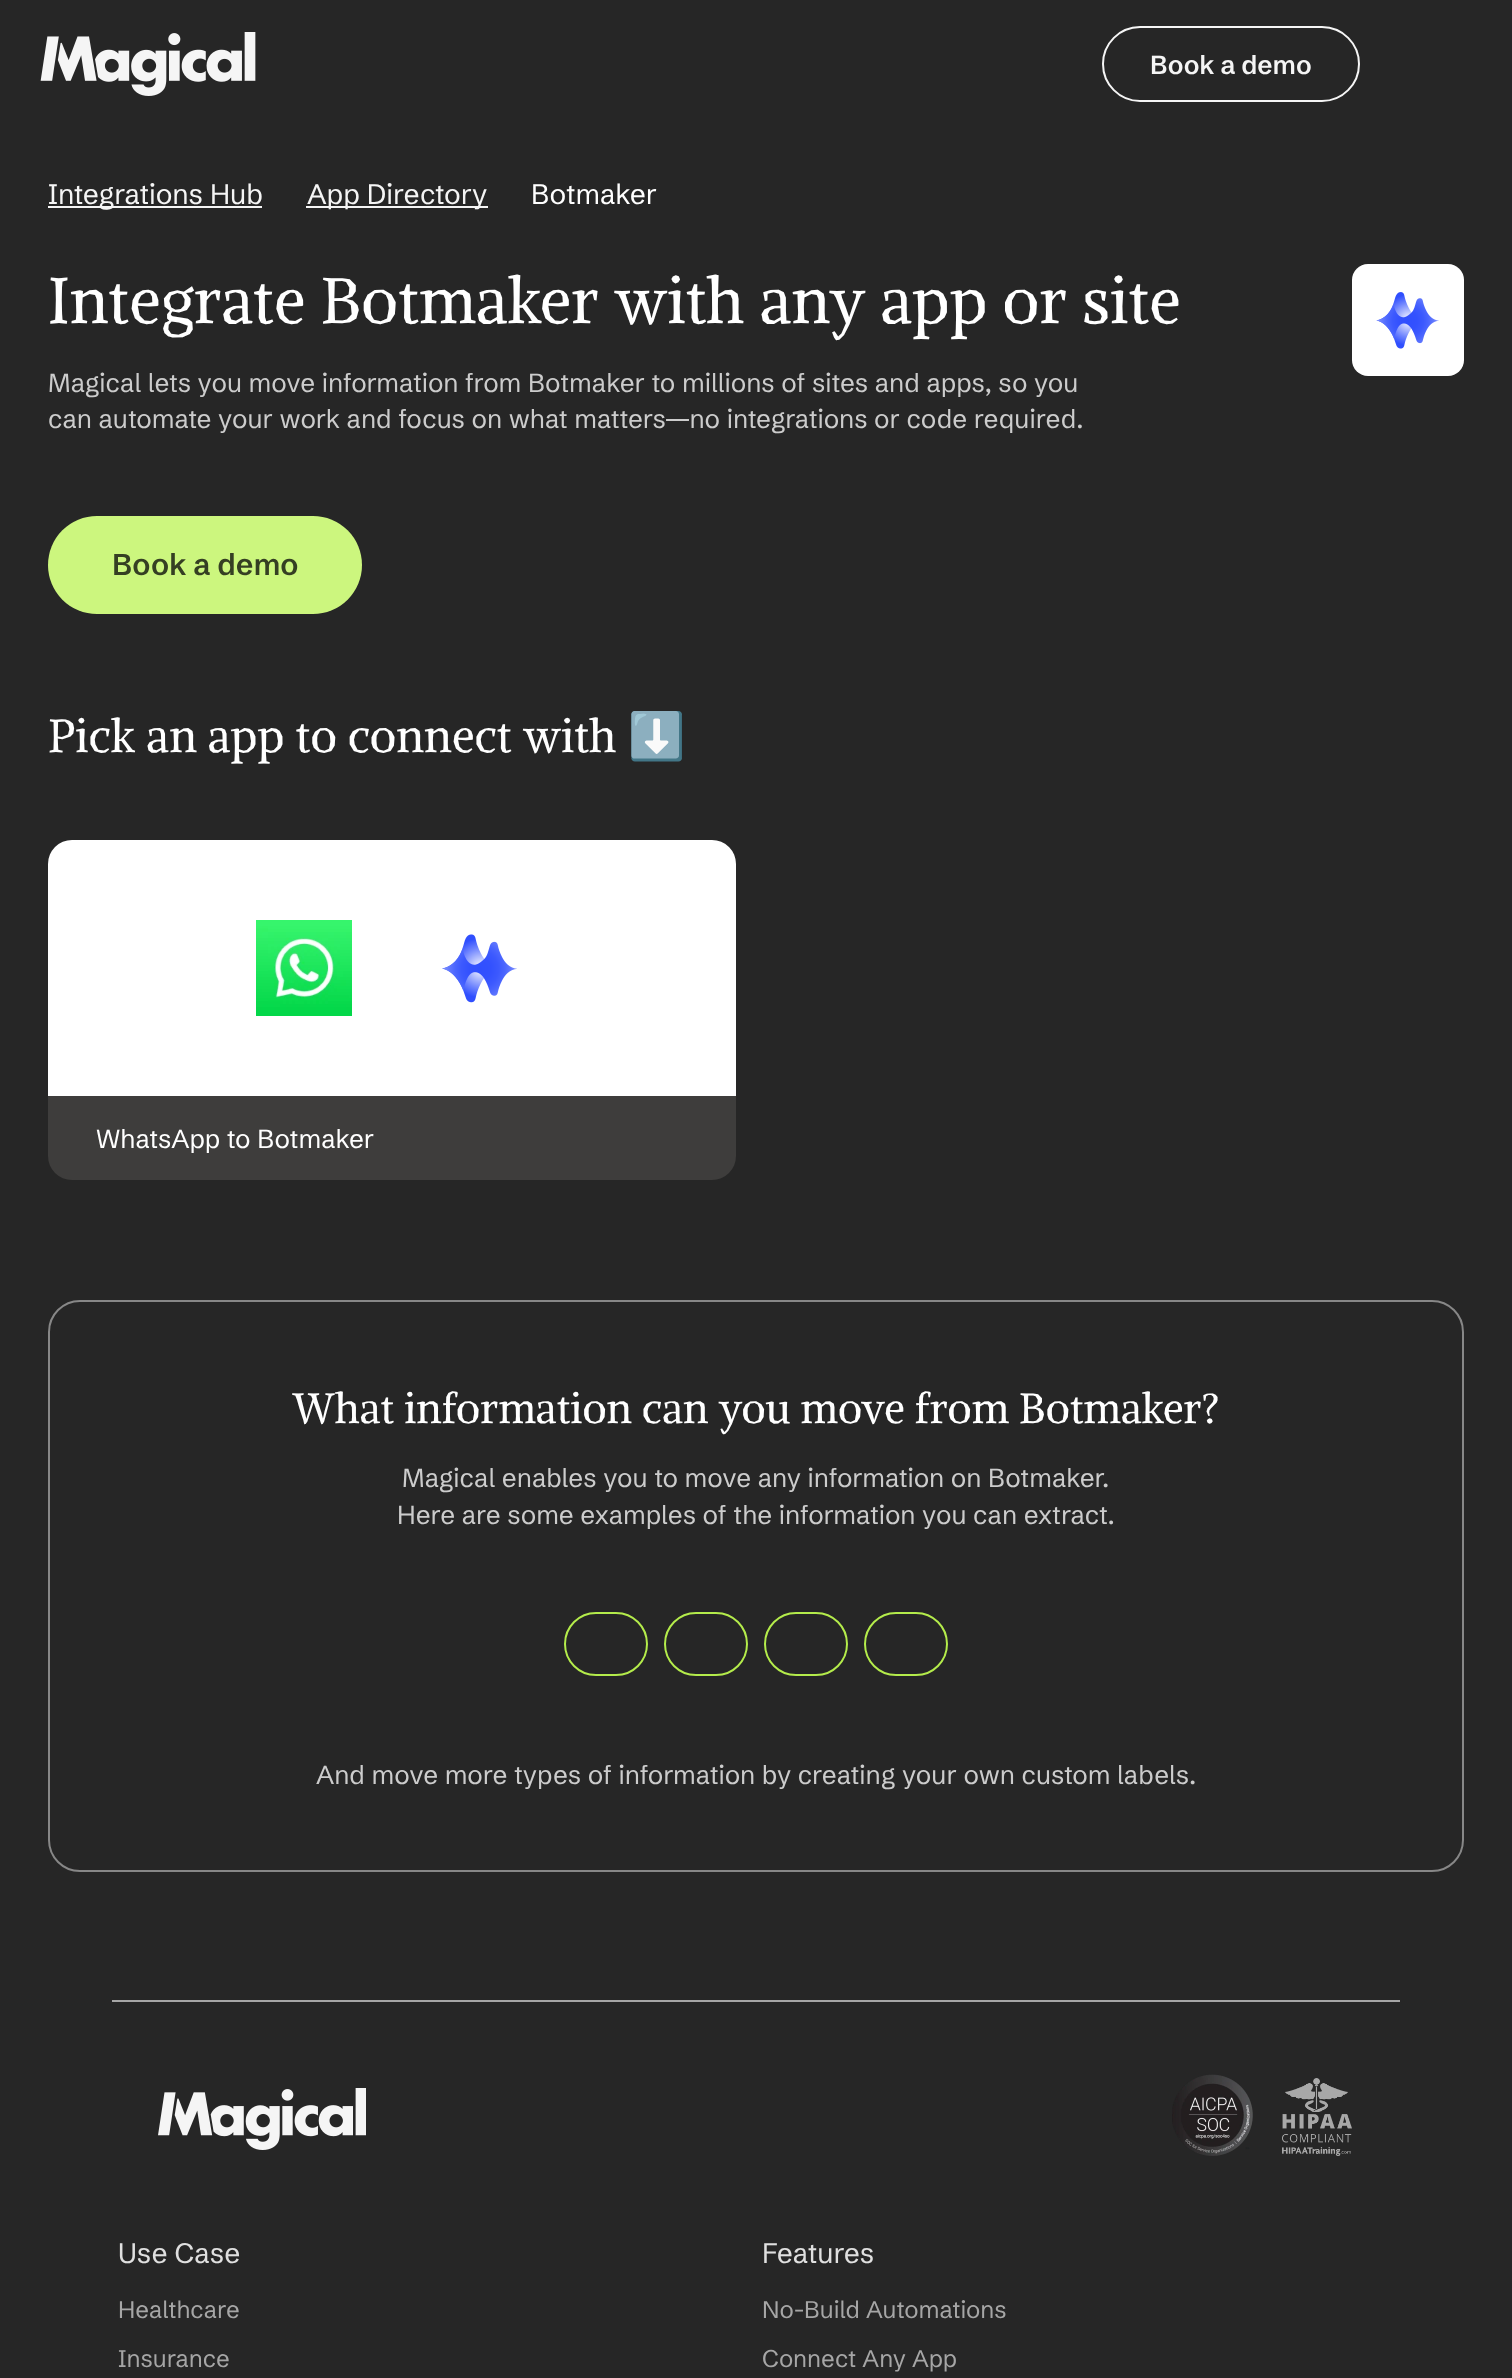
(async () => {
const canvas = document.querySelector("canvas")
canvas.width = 1512
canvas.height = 2378
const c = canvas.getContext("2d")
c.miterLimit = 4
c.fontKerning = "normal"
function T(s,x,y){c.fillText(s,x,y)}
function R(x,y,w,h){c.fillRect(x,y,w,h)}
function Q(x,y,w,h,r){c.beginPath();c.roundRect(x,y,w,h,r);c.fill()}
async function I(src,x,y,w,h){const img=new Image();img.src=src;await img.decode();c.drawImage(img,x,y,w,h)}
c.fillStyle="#262626"
R(0,0,1512,2378)
await I("1.png",40,32,216,64)
c.beginPath()
c.roundRect(1103,27,256,74,37)
c.strokeStyle="#f5f5f5"
c.lineWidth=2
c.stroke()
c.font="600 26px Schibsted Grotesk"
c.fillStyle="#f5f5f5"
T("Book a demo",1150,74)
R(48,206,214,2)
c.font="28px Schibsted Grotesk"
T("Integrations Hub",48,204)
R(306,206,182,2)
T("App Directory",307,204)
c.fillStyle="#fff"
T("Botmaker",531,204)
c.font="64px Alike Angular"
T("Integrate Botmaker with any app or site",48,323)
c.font="26px Schibsted Grotesk"
c.fillStyle="#ccc"
T("Magical lets you move information from Botmaker to millions of sites and apps, so you",48,392)
T("can automate your work and focus on what matters—no integrations or code required.",48,428)
c.fillStyle="#ccf67e"
Q(48,516,314,98,49)
c.font="600 30px Schibsted Grotesk"
c.fillStyle="#353f23"
T("Book a demo",112,575)
c.fillStyle="#fff"
Q(1352,264,112,112,16)
await I("2.png",1376,292,63,57)
c.font="46px Alike Angular"
T("Pick an app to connect with",48,752)
c.font="46px Noto Color Emoji"
T("⬇️",628,752)
c.beginPath()
c.roundRect(48,840,688,256,[24,24,0,0])
c.fill()
await I("3.png",256,920,96,96)
await I("4.png",442,934,75,69)
c.fillStyle="#3e3d3c"
c.beginPath()
c.roundRect(48,1096,688,84,[0,0,24,24])
c.fill()
c.font="26px Schibsted Grotesk"
c.fillStyle="#fff"
T("WhatsApp to Botmaker",96,1148)
c.beginPath()
c.roundRect(565,1613,82,62,31)
c.strokeStyle="#b4ec4b"
c.stroke()
c.beginPath()
c.roundRect(665,1613,82,62,31)
c.stroke()
c.beginPath()
c.roundRect(765,1613,82,62,31)
c.stroke()
c.beginPath()
c.roundRect(865,1613,82,62,31)
c.stroke()
c.beginPath()
c.roundRect(49,1301,1414,570,31)
c.strokeStyle="#878787"
c.stroke()
c.font="42px Alike Angular"
T("What information can you move from Botmaker?",293,1423)
c.font="26px Schibsted Grotesk"
c.fillStyle="#ccc"
T("Magical enables you to move any information on Botmaker.",402,1487)
T("Here are some examples of the information you can extract.",397,1524)
T("And move more types of information by creating your own custom labels.",316,1784)
c.fillStyle="#a6a6a6"
R(112,2000,1288,2)
await I("5.png",158,2088,208,62)
await I("6.png",1172,2074,81,82)
await I("7.png",1282,2078,70,78)
c.font="28px Schibsted Grotesk"
c.fillStyle="#e0e0e0"
T("Use Case",118,2263)
c.font="24px Schibsted Grotesk"
c.fillStyle="#a6a6a6"
T("Healthcare",118,2318)
T("Insurance",118,2367)
c.font="28px Schibsted Grotesk"
c.fillStyle="#e0e0e0"
T("Features",762,2263)
c.font="24px Schibsted Grotesk"
c.fillStyle="#a6a6a6"
T("No-Build Automations",762,2318)
T("Connect Any App",762,2367)
})()
